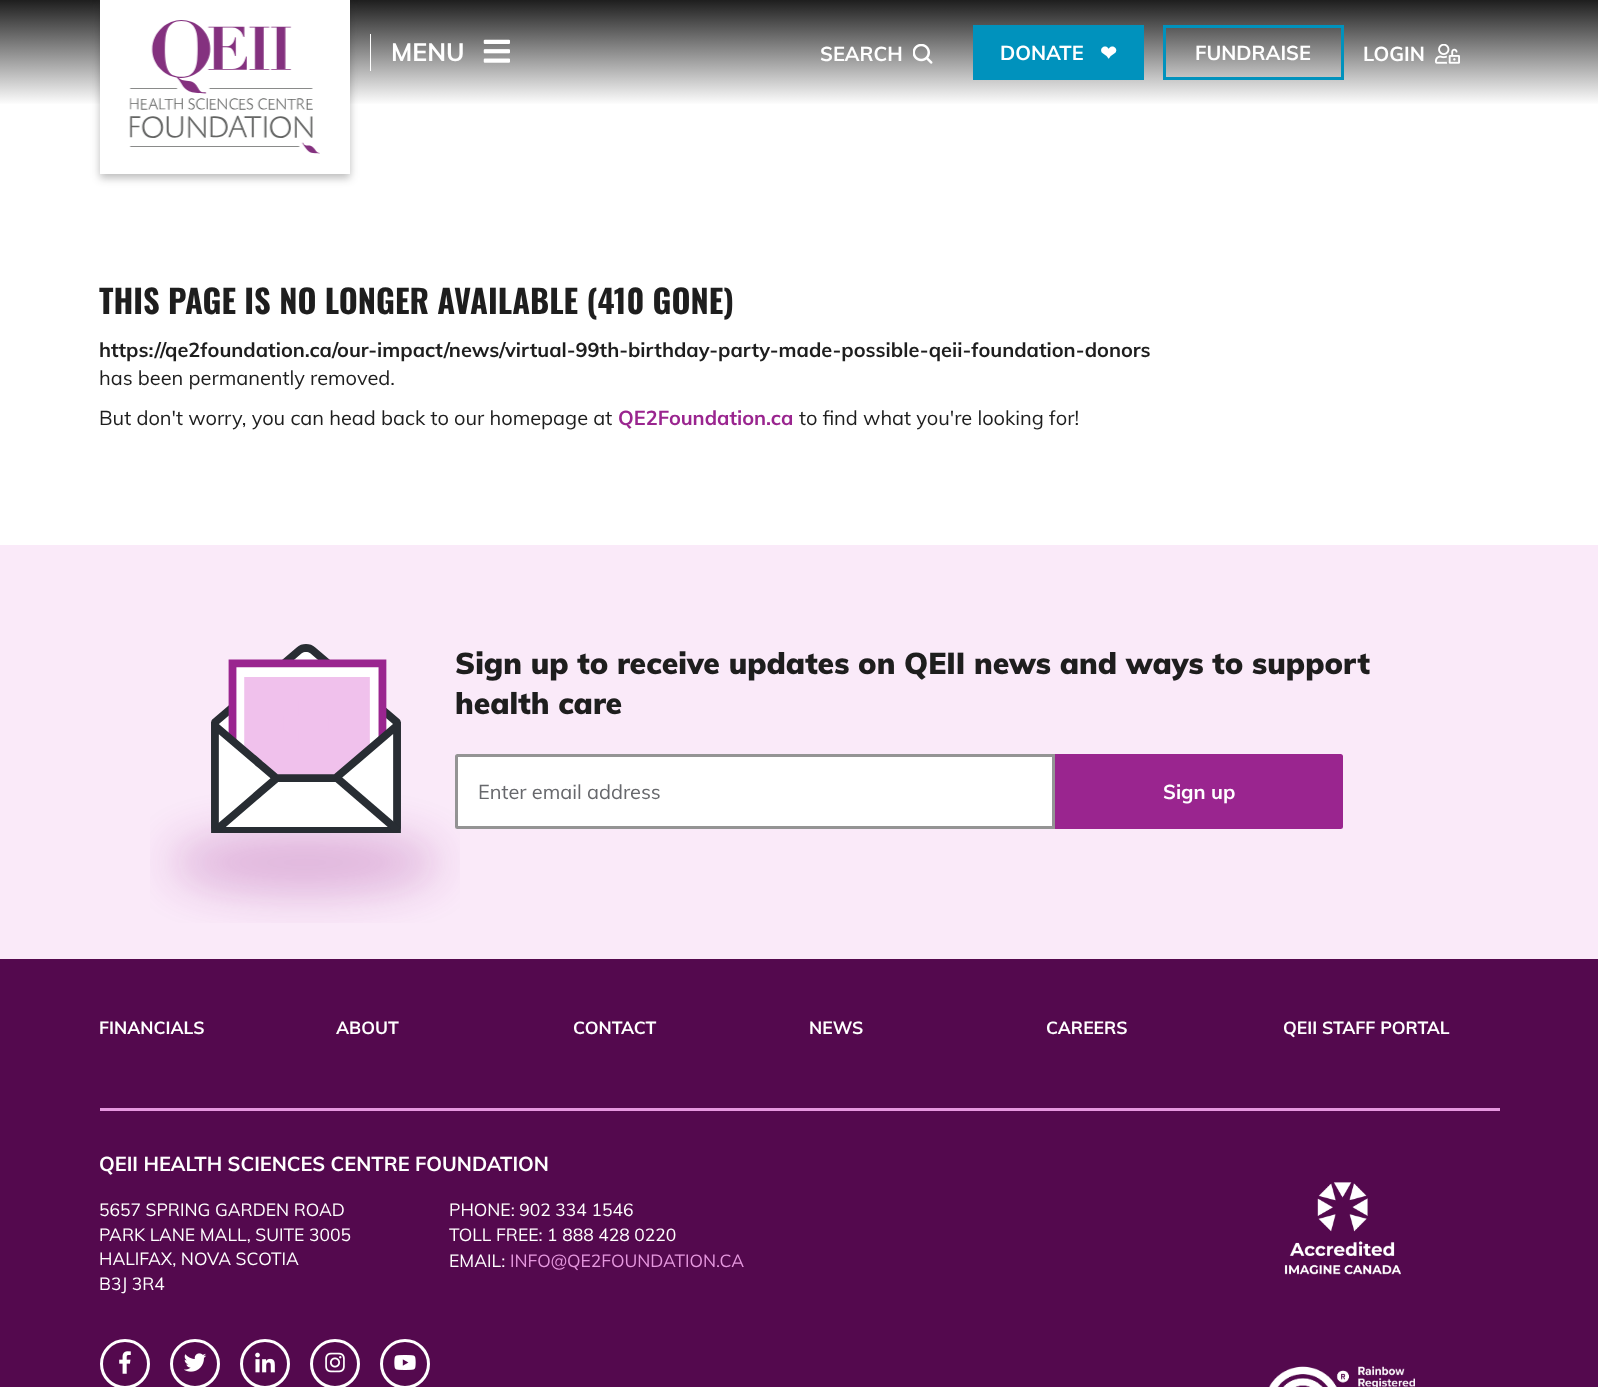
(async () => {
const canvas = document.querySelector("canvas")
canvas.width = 1598
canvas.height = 1387
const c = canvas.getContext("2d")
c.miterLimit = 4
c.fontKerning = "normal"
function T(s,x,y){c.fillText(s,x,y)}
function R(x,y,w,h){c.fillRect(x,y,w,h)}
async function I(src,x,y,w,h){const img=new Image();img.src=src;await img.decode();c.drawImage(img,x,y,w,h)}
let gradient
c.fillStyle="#fff"
R(0,0,1598,1387)
gradient = c.createLinearGradient(799,0,799,105)
gradient.addColorStop(0,"#1e1e1e")
gradient.addColorStop(1,"#fff")
c.fillStyle = gradient
R(0,0,1598,104)
c.fillStyle="#1e1e1e4d"
c.filter="blur(4px)"
c.beginPath()
c.rect(100,4,250,174)
c.fill()
c.filter="none"
c.fillStyle="#fff"
R(100,0,250,174)
await I("1.png",129,20,191,134)
R(370,34,1,37)
c.font="bold 25px Muli"
T("MENU",391,61)
await I("2.png",483,39,27,24)
c.font="bold 20px Muli"
T("SEARCH",820,61)
await I("3.png",913,44,20,20)
c.fillStyle="#0092bd"
R(973,25,171,55)
c.fillStyle="#fff"
T("DONATE",1000,60)
c.font="bold 20px DejaVu Sans"
T("❤",1100,60)
c.strokeStyle="#0092bd"
c.lineWidth=3
c.strokeRect(1164.5,26.5,178,52)
c.font="bold 20px Muli"
T("FUNDRAISE",1195,60)
T("LOGIN",1363,61)
await I("4.png",1435,44,25,20)
c.font="bold 32.5px Oswald"
c.fillStyle="#1e1e1e"
T("THIS PAGE IS NO LONGER AVAILABLE (410 GONE)",99,314)
c.font="bold 20px Muli"
T("https://qe2foundation.ca/our-impact/news/virtual-99th-birthday-party-made-possible-qeii-foundation-donors",99,357)
c.font="20px Muli"
T("has been permanently removed.",99,385)
T("But don't worry, you can head back to our homepage at",99,425)
c.font="bold 20px Muli"
c.fillStyle="#9a258f"
T("QE2Foundation.ca",618,425)
c.font="20px Muli"
c.fillStyle="#1e1e1e"
T("to find what you're looking for!",799,425)
c.fillStyle="#faeaf9"
R(0,545,1598,414)
c.font="900 30px Muli"
c.fillStyle="#1e1e1e"
T("Sign up to receive updates on QEII news and ways to support",455,674)
T("health care",455,714)
c.fillStyle="#fff"
c.beginPath()
c.roundRect(456.5,755.5,597,72,[1,0,0,1])
c.fill()
c.strokeStyle="#949494"
c.stroke()
await I("5.png",150,644,310,279)
c.font="20px Muli"
c.fillStyle="#67686c"
T("Enter email address",478,799)
c.fillStyle="#9a258f"
c.beginPath()
c.roundRect(1056.5,755.5,285,72,[0,1,1,0])
c.fill()
c.strokeStyle="#9a258f"
c.stroke()
c.font="bold 20px Muli"
c.fillStyle="#fff"
T("Sign up",1163,799)
c.fillStyle="#54094e"
R(0,959,1598,428)
c.fillStyle="#e698df"
R(100,1108,1400,3)
c.font="bold 17.5px Muli"
c.fillStyle="#fff"
T("FINANCIALS",99,1034)
T("ABOUT",336,1034)
T("CONTACT",573,1034)
T("NEWS",809,1034)
T("CAREERS",1046,1034)
T("QEII STAFF PORTAL",1283,1034)
c.font="bold 20px Muli"
T("QEII HEALTH SCIENCES CENTRE FOUNDATION",99,1171)
c.font="17.5px Muli"
T("5657 SPRING GARDEN ROAD",99,1216)
T("PARK LANE MALL, SUITE 3005",99,1241)
T("HALIFAX, NOVA SCOTIA",99,1265)
T("B3J 3R4",99,1290)
T("PHONE: 902 334 1546",449,1216)
T("TOLL FREE: 1 888 428 0220",449,1241)
T("EMAIL:",449,1267)
c.fillStyle="#e698df"
T("INFO@QE2FOUNDATION.CA",510,1267)
await I("6.png",1284,1182,117,93)
await I("7.png",1269,1366,146,21)
c.beginPath()
c.arc(125,1364,23.5,0,7)
c.strokeStyle="#fff"
c.stroke()
await I("8.png",119,1351,12,23)
c.beginPath()
c.arc(195,1364,23.5,0,7)
c.stroke()
await I("9.png",184,1353,23,19)
c.beginPath()
c.arc(265,1364,23.5,0,7)
c.stroke()
await I("10.png",255,1352,20,21)
c.beginPath()
c.arc(335,1364,23.5,0,7)
c.stroke()
await I("11.png",325,1352,20,21)
c.beginPath()
c.arc(405,1364,23.5,0,7)
c.stroke()
await I("12.png",394,1355,22,15)
})()
